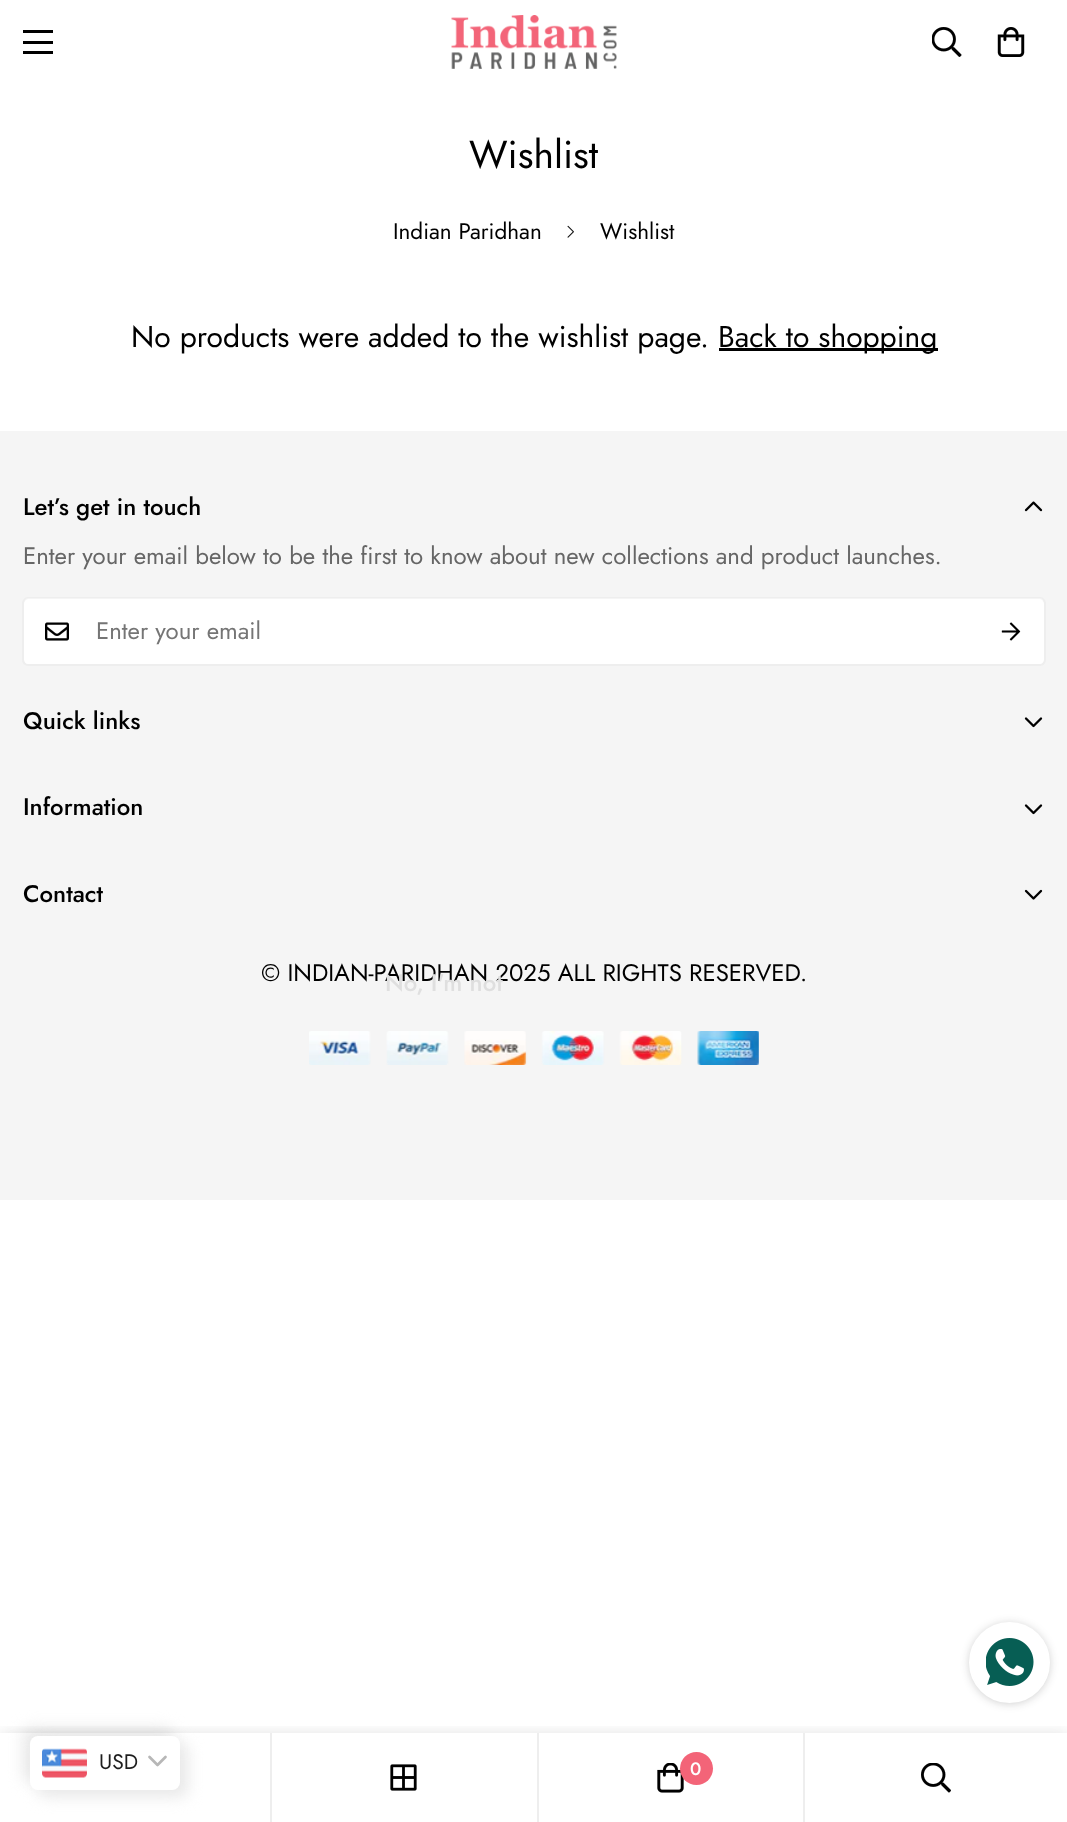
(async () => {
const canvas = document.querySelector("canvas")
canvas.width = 1067
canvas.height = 1822
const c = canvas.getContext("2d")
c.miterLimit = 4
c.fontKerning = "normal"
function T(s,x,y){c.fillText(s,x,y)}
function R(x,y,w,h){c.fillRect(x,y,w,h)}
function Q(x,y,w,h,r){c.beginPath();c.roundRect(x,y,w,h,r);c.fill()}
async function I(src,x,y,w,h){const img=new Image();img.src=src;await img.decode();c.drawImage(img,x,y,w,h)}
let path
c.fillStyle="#fff"
R(0,0,1067,1822)
c.fillStyle="#000"
R(23,41,30,3)
R(23,30,30,3)
R(23,51,30,3)
await I("1.png",451,15,166,54)
await I("2.png",932,27,30,30)
await I("3.png",997,27,28,30)
c.font="39px Jost"
T("Wishlist",469,168)
c.font="22.5px Jost"
T("Indian Paridhan",393,239)
await I("4.png",567,225,7,13)
T("Wishlist",600,239)
c.font="30px Jost"
T("No products were added to the wishlist page.",131,347)
R(719,348,219,3)
T("Back to shopping",718,347)
c.fillStyle="#f5f5f5"
R(0,431,1067,769)
c.font="500 24px Jost"
c.fillStyle="#000"
T("Let’s get in touch",23,515)
await I("5.png",1024,501,19,11)
c.font="24px Jost"
c.fillStyle="#666"
T("Enter your email below to be the first to know about new collections and product launches.",23,564)
c.fillStyle="#fff"
c.beginPath()
c.roundRect(24,599,954,66,[5,0,0,5])
c.fill()
c.fillStyle="#eee"
path = new Path2D("M28 597h950v69h-950c-3 0-6-3-6-6v-57c0-3 3-6 6-6zm0 1h950v66h-950c-2 0-4-2-4-4v-57c0-2 2-5 4-5z")
c.fill(path,"evenodd")
await I("6.png",45,622,24,19)
c.fillStyle="#757575"
T("Enter your email",96,639)
c.fillStyle="#fff"
c.beginPath()
c.roundRect(978,599,66,66,[0,5,5,0])
c.fill()
c.fillStyle="#eee"
path = new Path2D("M978 597h62c3 0 6 3 6 6v57c0 3-3 6-6 6h-62zm0 1h62c2 0 4 3 4 5v57c0 2-2 4-4 4h-62z")
c.fill(path,"evenodd")
await I("7.png",1001,622,20,19)
c.font="500 24px Jost"
c.fillStyle="#000"
T("Quick links",23,729)
await I("8.png",1024,717,19,11)
T("Information",23,815)
await I("8.png",1024,804,19,11)
T("Contact",23,902)
await I("9.png",1024,889,19,11)
c.font="24px Jost"
T("© INDIAN-PARIDHAN 2025 ALL RIGHTS RESERVED.",261,981)
await I("10.png",309,1031,450,34)
c.font="500 24px Jost"
c.fillStyle="#dfdfdf"
T("No, I'm not",385,991)
c.fillStyle="#1b1b1b33"
c.filter="blur(4.5px)"
c.beginPath()
c.roundRect(969,1623,81,81,40.5)
c.fill()
c.filter="none"
c.fillStyle="#fff"
c.beginPath()
c.arc(1009.5,1662.5,39.5,0,7)
c.fill()
c.strokeStyle="#fff"
c.lineWidth=2
c.stroke()
await I("11.png",986,1638,48,48)
c.fillStyle="#e8e8e8"
c.filter="blur(7.5px)"
c.beginPath()
c.roundRect(23,1728,150,54,8)
c.fill()
c.filter="none"
c.filter="blur(7.5px)"
c.beginPath()
c.roundRect(38,1743,150,54,8)
c.fill()
c.filter="none"
c.save()
c.beginPath()
c.rect(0,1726,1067,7)
c.clip()
c.fillStyle="#0000001c"
c.filter="blur(7.5px)"
c.beginPath()
c.rect(0,1733,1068,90)
c.fill()
c.filter="none"
c.restore()
c.fillStyle="#fff"
Q(30,1736,150,54,8)
await I("12.png",42,1748,45,30)
c.font="21px Jost"
c.fillStyle="#1e1e1e"
T("USD",99,1769)
path = new Path2D("M149.5 1757l8 8l8-8")
c.strokeStyle="#b7b7b7"
c.lineWidth=2.7
c.lineCap="round"
c.lineJoin="round"
c.stroke(path)
c.fillStyle="#eee"
R(270,1733,2,89)
R(537,1733,2,89)
await I("13.png",390,1764,27,27)
R(803,1733,2,89)
await I("14.png",657,1763,27,30)
c.fillStyle="#f36478"
c.beginPath()
c.arc(696.5,1768.5,16.5,0,7)
c.fill()
c.font="500 18px Jost"
c.fillStyle="#fff"
T("0",690,1775)
await I("15.png",921,1763,30,30)
})()
